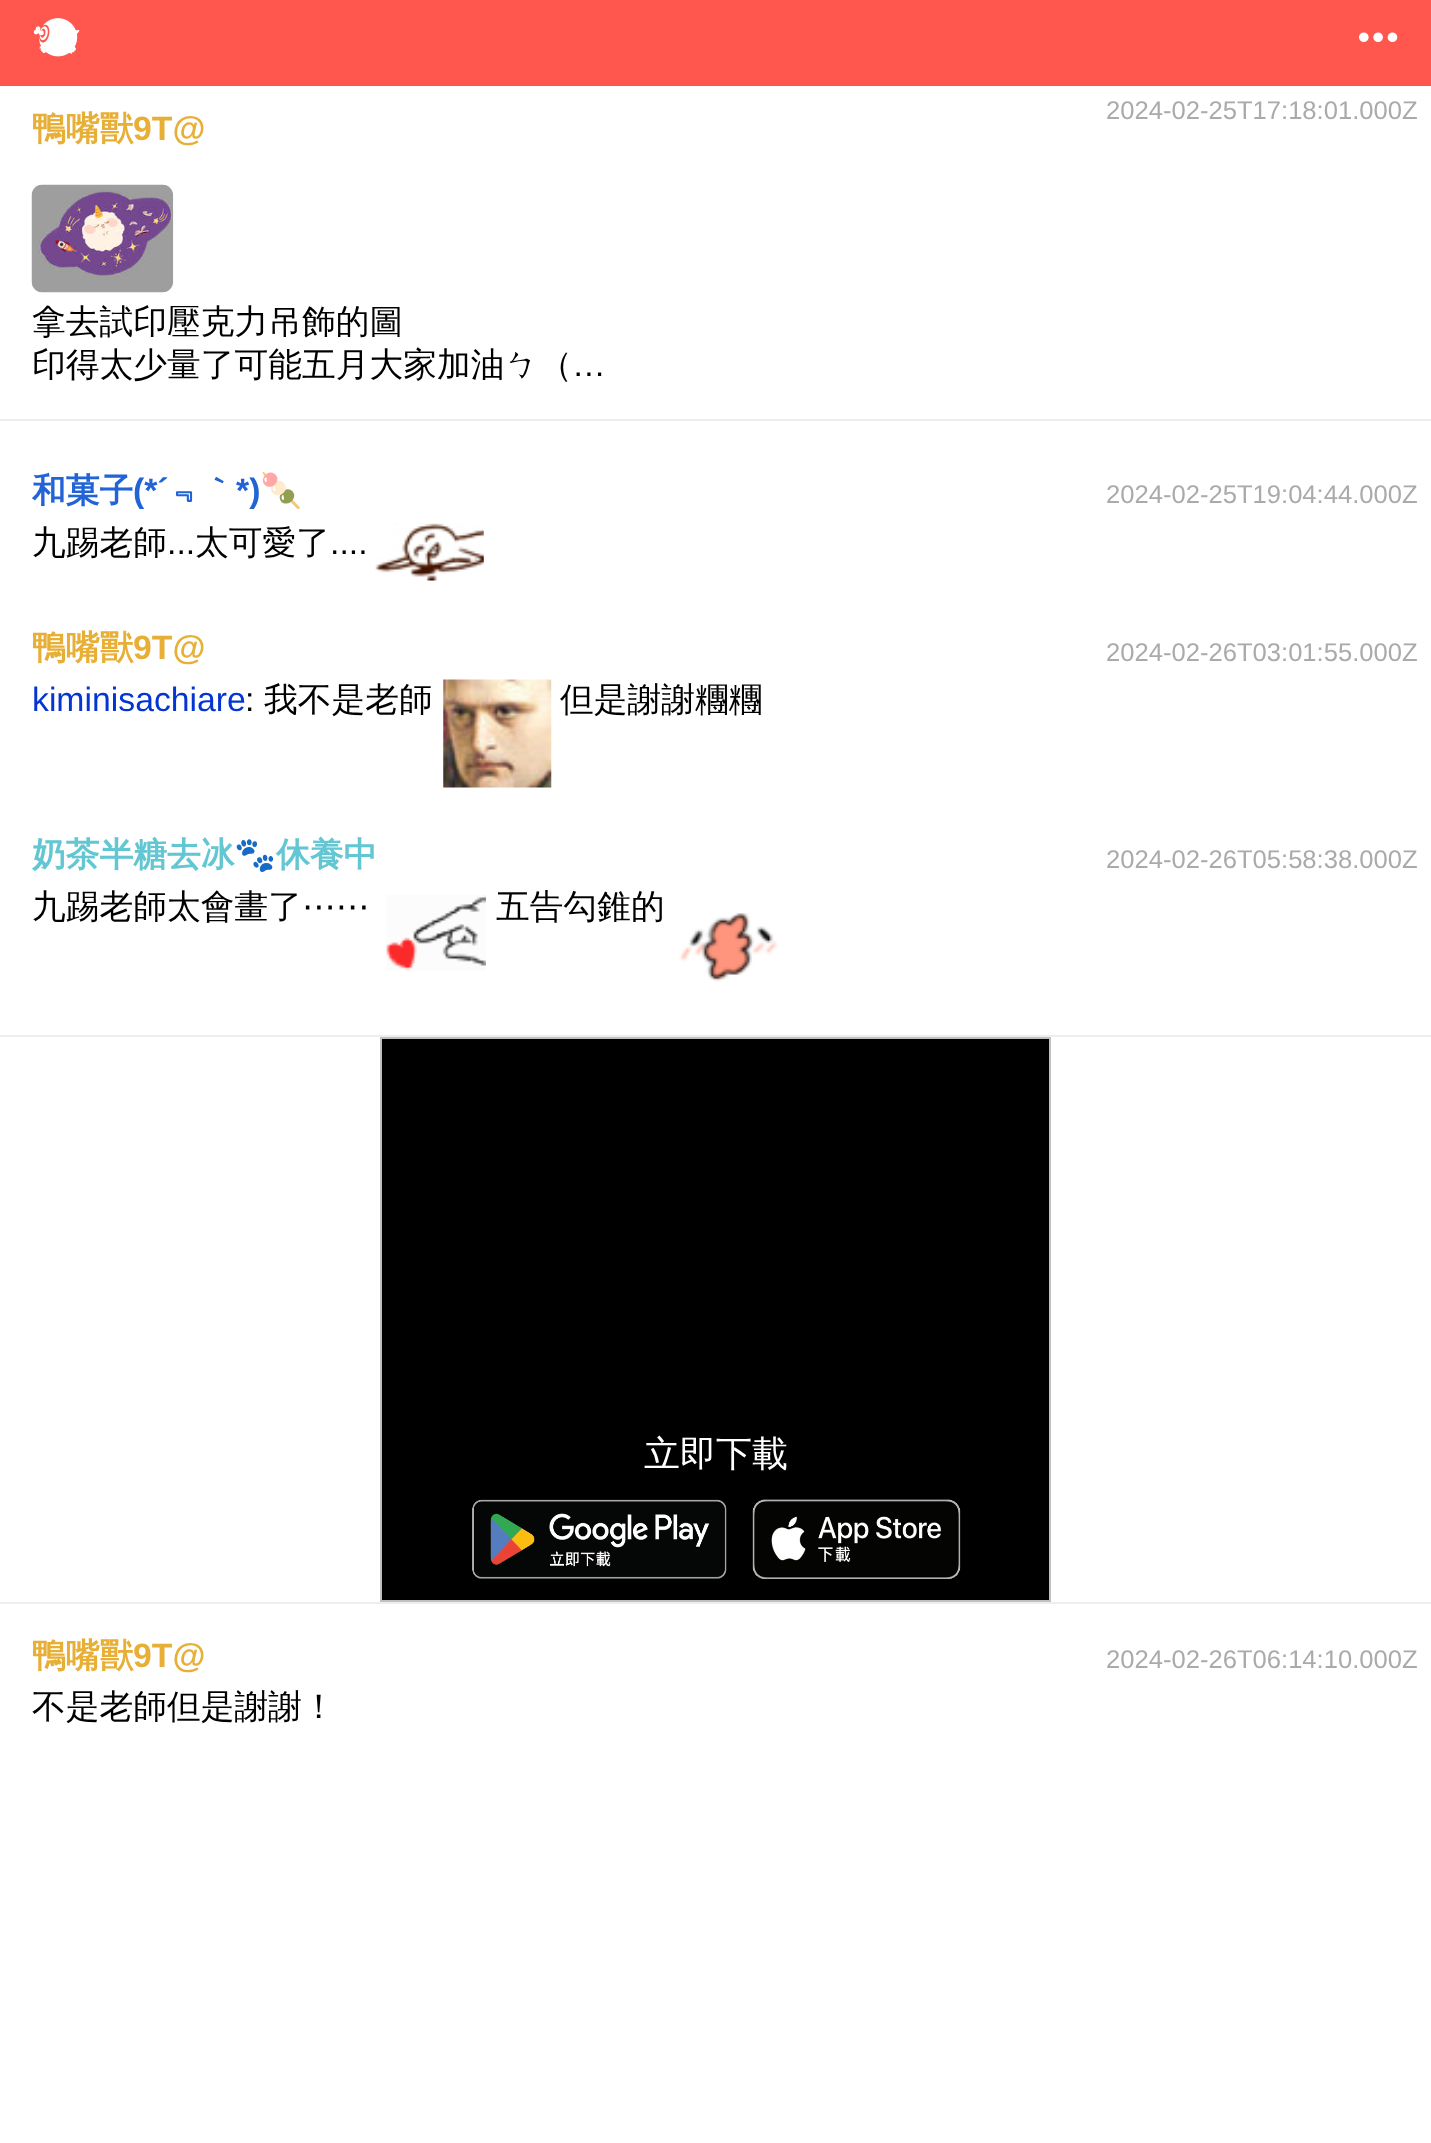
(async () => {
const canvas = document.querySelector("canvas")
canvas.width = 1431
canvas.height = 2143
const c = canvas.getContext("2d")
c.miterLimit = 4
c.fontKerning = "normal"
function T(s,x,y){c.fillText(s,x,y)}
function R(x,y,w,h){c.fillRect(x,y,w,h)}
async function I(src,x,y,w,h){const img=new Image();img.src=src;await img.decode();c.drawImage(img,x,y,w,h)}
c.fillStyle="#fff"
R(0,0,1431,2143)
c.fillStyle="#ff574d"
R(0,0,1431,86)
await I("1.png",33,18,47,39)
await I("2.png",1359,32,39,10)
c.fillStyle="#eeebf0"
R(0,419,1431,2)
c.font="bold 33.75px WenQuanYi Zen Hei"
c.fillStyle="#e8af37"
T("鴨嘴獸",32,140)
c.font="bold 33.75px Liberation Sans"
T("9T@",133,140)
c.font="25.6px Liberation Sans"
c.fillStyle="#aaa"
T("2024-02-25T17:18:01.000Z",1106,119)
await I("3.png",31,184,143,109)
c.font="500 33.75px WenQuanYi Zen Hei"
c.fillStyle="#000"
T("拿去試印壓克力吊飾的圖",32,333)
T("印得太少量了可能五月大家加油ㄅ（",32,376)
c.font="33.75px Liberation Sans"
T("…",572,376)
c.font="bold 33.75px WenQuanYi Zen Hei"
c.fillStyle="#2264d6"
T("和菓子",32,502)
c.font="bold 33.75px Liberation Sans"
T("(*´",133,502)
c.font="bold 33.75px WenQuanYi Zen Hei"
T("﹃｀",168,502)
c.font="bold 33.75px Liberation Sans"
T("*)",236,502)
c.font="bold 33.75px Noto Color Emoji"
T("🍡",260,502)
c.font="25.6px Liberation Sans"
c.fillStyle="#aaa"
T("2024-02-25T19:04:44.000Z",1106,503)
c.font="500 33.75px WenQuanYi Zen Hei"
c.fillStyle="#000"
T("九踢老師",32,554)
c.font="33.75px Liberation Sans"
T("...",167,554)
c.font="500 33.75px WenQuanYi Zen Hei"
T("太可愛了",195,554)
c.font="33.75px Liberation Sans"
T("....",330,554)
await I("4.png",375,522,109,59)
c.font="bold 33.75px WenQuanYi Zen Hei"
c.fillStyle="#e8af37"
T("鴨嘴獸",32,659)
c.font="bold 33.75px Liberation Sans"
T("9T@",133,659)
c.font="25.6px Liberation Sans"
c.fillStyle="#aaa"
T("2024-02-26T03:01:55.000Z",1106,661)
c.font="33.75px Liberation Sans"
c.fillStyle="#0435d2"
T("kiminisachiare",32,711)
c.fillStyle="#000"
T(":",245,711)
c.font="500 33.75px WenQuanYi Zen Hei"
T("我不是老師",264,711)
await I("5.png",443,679,109,109)
T("但是謝謝糰糰",560,711)
c.font="bold 33.75px WenQuanYi Zen Hei"
c.fillStyle="#63c6d3"
T("奶茶半糖去冰",32,866)
c.font="bold 33.75px Noto Color Emoji"
T("🐾",234,866)
c.font="bold 33.75px WenQuanYi Zen Hei"
T("休養中",276,866)
c.font="25.6px Liberation Sans"
c.fillStyle="#aaa"
T("2024-02-26T05:58:38.000Z",1106,868)
c.font="500 33.75px WenQuanYi Zen Hei"
c.fillStyle="#000"
T("九踢老師太會畫了",32,918)
c.font="33.75px DejaVu Sans"
T("⋯⋯",302,918)
await I("6.png",386,895,100,76)
c.font="500 33.75px WenQuanYi Zen Hei"
T("五告勾錐的",496,918)
await I("7.png",679,913,99,69)
c.fillStyle="#eee"
R(0,1035,1431,2)
R(0,1602,1431,2)
c.fillStyle="#000"
c.beginPath()
c.rect(381,1038,669,563)
c.fill()
c.strokeStyle="#c0c0c0"
c.lineWidth=2
c.stroke()
c.font="500 36px WenQuanYi Zen Hei"
c.fillStyle="#fff"
T("立即下載",644,1466)
await I("8.png",472,1499,489,80)
c.font="bold 33.75px WenQuanYi Zen Hei"
c.fillStyle="#e8af37"
T("鴨嘴獸",32,1667)
c.font="bold 33.75px Liberation Sans"
T("9T@",133,1667)
c.font="25.6px Liberation Sans"
c.fillStyle="#aaa"
T("2024-02-26T06:14:10.000Z",1106,1668)
c.font="500 33.75px WenQuanYi Zen Hei"
c.fillStyle="#000"
T("不是老師但是謝謝！",32,1718)
})()
